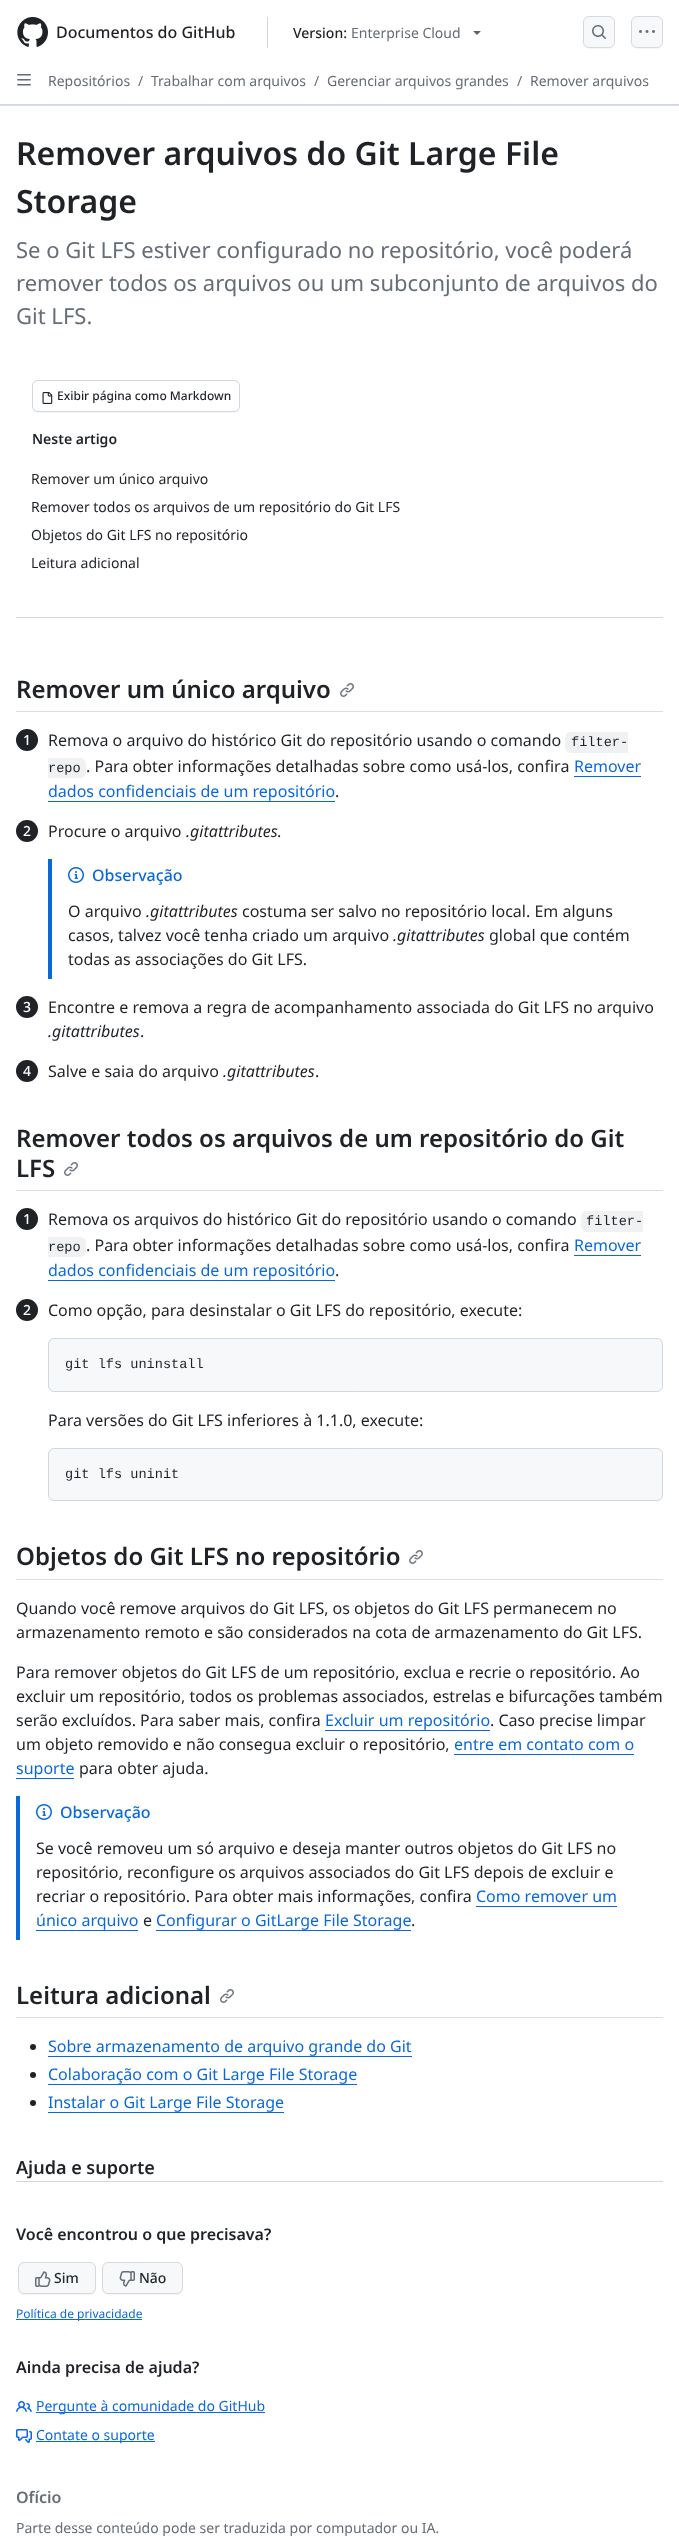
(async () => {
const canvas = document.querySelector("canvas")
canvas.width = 679
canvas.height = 2536
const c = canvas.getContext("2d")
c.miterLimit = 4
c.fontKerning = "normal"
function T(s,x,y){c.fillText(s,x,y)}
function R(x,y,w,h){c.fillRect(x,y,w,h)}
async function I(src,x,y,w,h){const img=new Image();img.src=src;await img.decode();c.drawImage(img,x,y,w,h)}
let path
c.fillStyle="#fff"
R(0,0,679,2536)
c.fillStyle="#d8dee4"
R(0,105,679,1)
c.fillStyle="#d0d7de"
R(0,104,679,1)
await I("1.png",17,17,31,30)
c.font="500 16px Noto Sans"
c.fillStyle="#1f2328"
T("Documentos do GitHub",56,38)
c.fillStyle="#d0d7de"
R(267,17,1,31)
c.font="500 14px Noto Sans"
c.fillStyle="#1f2328"
T("Version:",293,38)
c.font="14px Noto Sans"
c.fillStyle="#656d76"
T("Enterprise Cloud",351,38)
await I("2.png",473,31,8,4)
c.fillStyle="#f6f6f6"
path = new Path2D("M583 42c0 6.5 4 7 9.5 7h13c5.5 0 9.5-.5 9.5-7c0 3.5-2.5 6-6 6h-20c-3.5 0-6-2.5-6-6z")
c.fill(path)
c.fillStyle="#f6f8fa"
c.beginPath()
c.roundRect(583.5,16.5,31,31,5.5)
c.fill()
c.strokeStyle="#d6d8db"
c.stroke()
await I("3.png",592,25,14,14)
c.fillStyle="#f6f6f6"
path = new Path2D("M631 42c0 6.5 4 7 9.5 7h13c5.5 0 9.5-.5 9.5-7c0 3.5-2.5 6-6 6h-20c-3.5 0-6-2.5-6-6z")
c.fill(path)
c.fillStyle="#f6f8fa"
c.beginPath()
c.roundRect(631.5,16.5,31,31,5.5)
c.fill()
c.stroke()
await I("4.png",639,30,16,3)
await I("5.png",17,74,14,12)
c.fillStyle="#656d76"
T("Repositórios",48,86)
T("/",138,86)
T("Trabalhar com arquivos",151,86)
T("/",314,86)
T("Gerenciar arquivos grandes",327,86)
T("/",517,86)
T("Remover arquivos",530,86)
c.font="600 32px Noto Sans"
c.fillStyle="#1f2328"
T("Remover arquivos do Git Large File",16,165)
T("Storage",16,213)
c.font="22px Noto Sans"
c.fillStyle="#656d76"
T("Se o Git LFS estiver configurado no repositório, você poderá",16,258)
T("remover todos os arquivos ou um subconjunto de arquivos do",16,291)
T("Git LFS.",16,324)
c.fillStyle="#d0d7de"
R(16,617,647,1)
c.fillStyle="#f6f6f6"
path = new Path2D("M32 406c0 3 1 6 5 7h198c4-1 5-4 5-7c0 3-3 6-6 6h-196c-3 0-6-3-6-6z")
c.fill(path)
c.beginPath()
c.roundRect(32.5,380.5,207,31,5.5)
c.strokeStyle="#d0d7de"
c.stroke()
await I("6.png",42,392,11,12)
c.font="500 12px Noto Sans"
c.fillStyle="#1f2328"
T("Exibir página como Markdown",57,400)
c.font="600 14px Noto Sans"
T("Neste artigo",32,444)
c.font="14px Noto Sans"
T("Remover um único arquivo",31,484)
T("Remover todos os arquivos de um repositório do Git LFS",31,512)
T("Objetos do Git LFS no repositório",31,540)
T("Leitura adicional",31,568)
c.fillStyle="#d8dee4"
R(16,711,647,1)
c.font="600 24px Noto Sans"
c.fillStyle="#1f2328"
T("Remover um único arquivo",16,698)
await I("7.png",340,683,14,14)
c.beginPath()
c.arc(27,740,11,0,7)
c.fill()
c.font="500 14px Noto Sans"
c.fillStyle="#fff"
T("1",23,745)
c.font="16px Noto Sans"
c.fillStyle="#1f2328"
T("Remova o arquivo do histórico Git do repositório usando o comando",48,746)
c.fillStyle="#eff1f3"
c.beginPath()
c.roundRect(565,732,63,21,[6,0,0,6])
c.fill()
c.font="13.6px Liberation Mono"
c.fillStyle="#1f2328"
T("filter-",571,746)
c.fillStyle="#eff1f3"
c.beginPath()
c.roundRect(48,758,38,20,[0,6,6,0])
c.fill()
c.fillStyle="#1f2328"
T("repo",48,772)
c.font="16px Noto Sans"
T(". Para obter informações detalhadas sobre como usá-los, confira",86,772)
c.fillStyle="#0969da"
T("Remover",574,772)
R(574,776,67,1)
T("dados confidenciais de um repositório",48,797)
R(48,801,287,1)
c.fillStyle="#1f2328"
T(".",335,797)
c.beginPath()
c.arc(27,831,11,0,7)
c.fill()
c.font="500 14px Noto Sans"
c.fillStyle="#fff"
T("2",23,836)
c.font="16px Noto Sans"
c.fillStyle="#1f2328"
T("Procure o arquivo",48,837)
c.font="italic 16px Noto Sans"
T(".gitattributes",186,837)
c.font="16px Noto Sans"
T(".",277,837)
c.fillStyle="#0969da"
R(48,859,4,120)
await I("8.png",68,867,16,16)
c.font="500 16px Noto Sans"
T("Observação",92,881)
c.font="16px Noto Sans"
c.fillStyle="#1f2328"
T("O arquivo",68,917)
c.font="italic 16px Noto Sans"
T(".gitattributes",146,917)
c.font="16px Noto Sans"
T("costuma ser salvo no repositório local. Em alguns",242,917)
T("casos, talvez você tenha criado um arquivo",68,941)
c.font="italic 16px Noto Sans"
T(".gitattributes",393,941)
c.font="16px Noto Sans"
T("global que contém",489,941)
T("todas as associações do Git LFS.",68,965)
c.beginPath()
c.arc(27,1007,11,0,7)
c.fill()
c.font="500 14px Noto Sans"
c.fillStyle="#fff"
T("3",23,1012)
c.font="16px Noto Sans"
c.fillStyle="#1f2328"
T("Encontre e remova a regra de acompanhamento associada do Git LFS no arquivo",48,1013)
c.font="italic 16px Noto Sans"
T(".gitattributes",48,1037)
c.font="16px Noto Sans"
T(".",140,1037)
c.beginPath()
c.arc(27,1071,11,0,7)
c.fill()
c.font="500 14px Noto Sans"
c.fillStyle="#fff"
T("4",23,1076)
c.font="16px Noto Sans"
c.fillStyle="#1f2328"
T("Salve e saia do arquivo",48,1077)
c.font="italic 16px Noto Sans"
T(".gitattributes",223,1077)
c.font="16px Noto Sans"
T(".",315,1077)
c.fillStyle="#d8dee4"
R(16,1190,647,1)
c.font="600 24px Noto Sans"
c.fillStyle="#1f2328"
T("Remover todos os arquivos de um repositório do Git",16,1147)
T("LFS",16,1177)
await I("7.png",64,1162,14,14)
c.beginPath()
c.arc(27,1219,11,0,7)
c.fill()
c.font="500 14px Noto Sans"
c.fillStyle="#fff"
T("1",23,1224)
c.font="16px Noto Sans"
c.fillStyle="#1f2328"
T("Remova os arquivos do histórico Git do repositório usando o comando",48,1225)
c.fillStyle="#eff1f3"
c.beginPath()
c.roundRect(581,1211,62,21,[6,0,0,6])
c.fill()
c.font="13.6px Liberation Mono"
c.fillStyle="#1f2328"
T("filter-",586,1225)
c.fillStyle="#eff1f3"
c.beginPath()
c.roundRect(48,1237,38,20,[0,6,6,0])
c.fill()
c.fillStyle="#1f2328"
T("repo",48,1251)
c.font="16px Noto Sans"
T(". Para obter informações detalhadas sobre como usá-los, confira",86,1251)
c.fillStyle="#0969da"
T("Remover",574,1251)
R(574,1255,67,1)
T("dados confidenciais de um repositório",48,1276)
R(48,1280,287,1)
c.fillStyle="#1f2328"
T(".",335,1276)
c.beginPath()
c.arc(27,1310,11,0,7)
c.fill()
c.font="500 14px Noto Sans"
c.fillStyle="#fff"
T("2",23,1315)
c.font="16px Noto Sans"
c.fillStyle="#1f2328"
T("Como opção, para desinstalar o Git LFS do repositório, execute:",48,1316)
c.fillStyle="#f6f8fa"
c.beginPath()
c.roundRect(48.5,1338.5,614,53,5.5)
c.fill()
c.stroke()
c.font="13.6px Liberation Mono"
c.fillStyle="#1f2328"
T("git lfs uninstall",65,1368)
c.font="16px Noto Sans"
T("Para versões do Git LFS inferiores à 1.1.0, execute:",48,1426)
c.fillStyle="#f6f8fa"
c.beginPath()
c.roundRect(48.5,1448.5,614,52,5.5)
c.fill()
c.stroke()
c.font="13.6px Liberation Mono"
c.fillStyle="#1f2328"
T("git lfs uninit",65,1478)
c.fillStyle="#d8dee4"
R(16,1579,647,1)
c.font="600 24px Noto Sans"
c.fillStyle="#1f2328"
T("Objetos do Git LFS no repositório",16,1565)
await I("7.png",409,1550,14,14)
c.font="16px Noto Sans"
T("Quando você remove arquivos do Git LFS, os objetos do Git LFS permanecem no",16,1614)
T("armazenamento remoto e são considerados na cota de armazenamento do Git LFS.",16,1638)
T("Para remover objetos do Git LFS de um repositório, exclua e recrie o repositório. Ao",16,1678)
T("excluir um repositório, todos os problemas associados, estrelas e bifurcações também",16,1702)
T("serão excluídos. Para saber mais, confira",16,1726)
c.fillStyle="#0969da"
T("Excluir um repositório",325,1726)
R(325,1730,165,1)
c.fillStyle="#1f2328"
T(". Caso precise limpar",490,1726)
T("um objeto removido e não consegua excluir o repositório,",16,1750)
c.fillStyle="#0969da"
T("entre em contato com o",454,1750)
R(454,1754,180,1)
T("suporte",16,1774)
R(16,1778,58,1)
c.fillStyle="#1f2328"
T("para obter ajuda.",79,1774)
c.fillStyle="#0969da"
R(16,1796,4,144)
await I("8.png",36,1804,16,16)
c.font="500 16px Noto Sans"
T("Observação",60,1818)
c.font="16px Noto Sans"
c.fillStyle="#1f2328"
T("Se você removeu um só arquivo e deseja manter outros objetos do Git LFS no",36,1854)
T("repositório, reconfigure os arquivos associados do Git LFS depois de excluir e",36,1878)
T("recriar o repositório. Para obter mais informações, confira",36,1902)
c.fillStyle="#0969da"
T("Como remover um",476,1902)
R(476,1906,141,1)
T("único arquivo",36,1926)
R(36,1930,102,1)
c.fillStyle="#1f2328"
T("e",143,1926)
c.fillStyle="#0969da"
T("Configurar o GitLarge File Storage",156,1926)
R(156,1930,255,1)
c.fillStyle="#1f2328"
T(".",411,1926)
c.fillStyle="#d8dee4"
R(16,2017,647,1)
c.font="600 24px Noto Sans"
c.fillStyle="#1f2328"
T("Leitura adicional",16,2004)
await I("7.png",220,1989,14,14)
c.beginPath()
c.arc(33,2047,3,0,7)
c.fill()
c.font="16px Noto Sans"
c.fillStyle="#0969da"
T("Sobre armazenamento de arquivo grande do Git",48,2052)
R(48,2056,364,1)
c.fillStyle="#1f2328"
c.beginPath()
c.arc(33,2075,3,0,7)
c.fill()
c.fillStyle="#0969da"
T("Colaboração com o Git Large File Storage",48,2080)
R(48,2084,309,1)
c.fillStyle="#1f2328"
c.beginPath()
c.arc(33,2103,3,0,7)
c.fill()
c.fillStyle="#0969da"
T("Instalar o Git Large File Storage",48,2108)
R(48,2112,236,1)
c.font="600 18px Noto Sans"
c.fillStyle="#1f2328"
T("Ajuda e suporte",16,2174)
c.fillStyle="#d0d7de"
R(16,2181,647,1)
c.font="600 16px Noto Sans"
c.fillStyle="#1f2328"
T("Você encontrou o que precisava?",16,2240)
c.fillStyle="#f6f6f6"
path = new Path2D("M18 2288c0 10 10 7 17 7h44c7 0 17 3 17-7c0 3-3 6-6 6h-66c-3 0-6-3-6-6z")
c.fill(path)
c.fillStyle="#f6f8fa"
c.beginPath()
c.roundRect(18.5,2262.5,77,31,5.5)
c.fill()
c.strokeStyle="#d6d8db"
c.stroke()
await I("9.png",35,2271,16,16)
c.font="500 14px Noto Sans"
c.fillStyle="#24292f"
T("Sim",54,2283)
c.fillStyle="#f6f6f6"
path = new Path2D("M102 2288c0 10 11 7 18 7h46c6 0 17 3 17-7c0 3-3 6-6 6h-69c-3 0-6-3-6-6z")
c.fill(path)
c.fillStyle="#f6f8fa"
c.beginPath()
c.roundRect(102.5,2262.5,80,31,5.5)
c.fill()
c.stroke()
await I("10.png",119,2271,16,16)
c.fillStyle="#24292f"
T("Não",139,2283)
c.fillStyle="#0969da"
R(16,2319,126,1)
c.font="12px Noto Sans"
T("Política de privacidade",16,2318)
c.font="600 16px Noto Sans"
c.fillStyle="#1f2328"
T("Ainda precisa de ajuda?",16,2373)
await I("11.png",16,2401,16,11)
c.fillStyle="#0969da"
R(36,2412,229,1)
c.font="14px Noto Sans"
T("Pergunte à comunidade do GitHub",36,2411)
await I("12.png",16,2429,16,14)
R(36,2441,119,1)
T("Contate o suporte",36,2440)
c.font="600 16px Noto Sans"
c.fillStyle="#656d76"
T("Ofício",16,2503)
c.font="14px Noto Sans"
T("Parte desse conteúdo pode ser traduzida por computador ou IA.",16,2533)
})()
